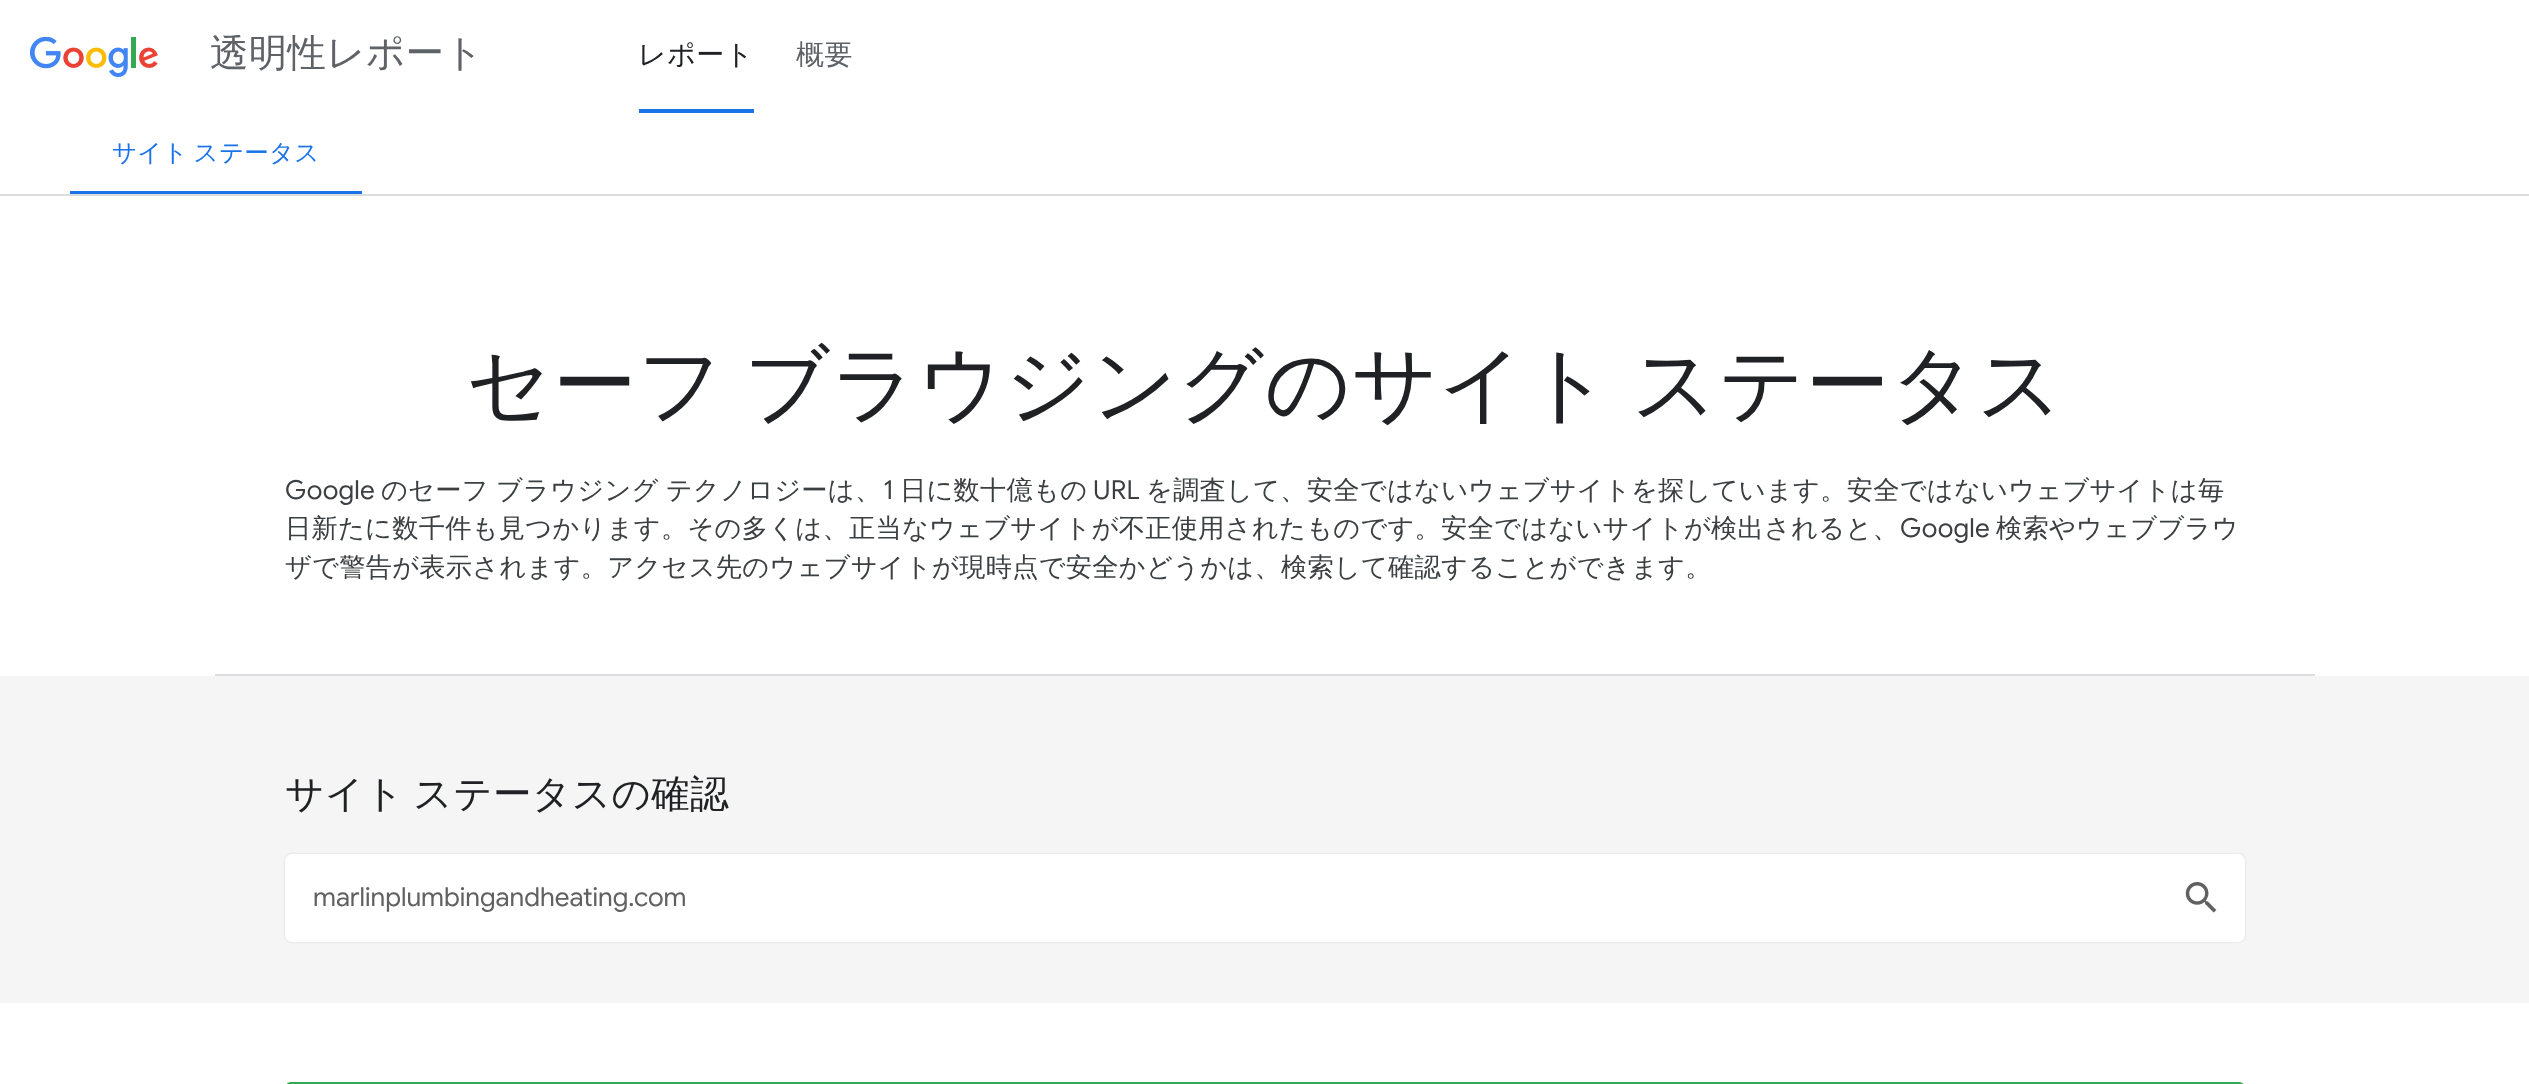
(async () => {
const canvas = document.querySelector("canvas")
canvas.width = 2529
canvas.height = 1084
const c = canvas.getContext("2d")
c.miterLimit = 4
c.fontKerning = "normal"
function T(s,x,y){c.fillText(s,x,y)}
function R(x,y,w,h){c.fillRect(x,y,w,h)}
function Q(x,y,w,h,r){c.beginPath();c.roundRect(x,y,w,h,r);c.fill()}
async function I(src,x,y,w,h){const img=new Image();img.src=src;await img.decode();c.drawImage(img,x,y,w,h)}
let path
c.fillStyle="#f5f5f5"
R(0,0,2529,1084)
c.fillStyle="#fff"
R(0,0,2529,194)
await I("1.png",30,37,128,40)
c.save()
c.beginPath()
c.roundRect(210,35,275,42,7)
c.clip()
c.letterSpacing="0.25px"
c.font="500 38.5px WenQuanYi Zen Hei"
c.fillStyle="#5f6368"
T("透明性レポート",210,66)
c.restore()
c.letterSpacing="0.5px"
c.font="500 28px WenQuanYi Zen Hei"
c.fillStyle="#202124"
T("レポート",638,64)
c.fillStyle="#1a73e8"
R(639,109,115,4)
c.fillStyle="#5f6368"
T("概要",796,64)
c.fillStyle="#dadce0"
R(0,194,2529,2)
c.letterSpacing="0.25px"
c.wordSpacing="-2px"
c.font="500 24.5px WenQuanYi Zen Hei"
c.fillStyle="#1a73e8"
T("サイト ステータス",112,161)
R(70,191,292,3)
c.fillStyle="#fff"
R(0,196,2529,480)
c.fillStyle="#dadce0"
R(215,674,2100,2)
c.letterSpacing="0.8px"
c.wordSpacing="-6px"
c.font="500 84px WenQuanYi Zen Hei"
c.fillStyle="#202124"
T("セーフ ブラウジングのサイト ステータス",466,413)
c.letterSpacing="0.25px"
c.wordSpacing="0px"
c.font="26.25px Google Sans"
c.fillStyle="#3c4043"
T("Google",285,499)
c.wordSpacing="-1px"
c.font="500 26.25px WenQuanYi Zen Hei"
T("のセーフ ブラウジング テクノロジーは、",381,499)
c.wordSpacing="0px"
c.font="26.25px Google Sans"
T("1",883,499)
c.font="500 26.25px WenQuanYi Zen Hei"
T("日に数十億もの",900,499)
c.font="26.25px Google Sans"
T("URL",1093,499)
c.font="500 26.25px WenQuanYi Zen Hei"
T("を調査して、安全ではないウェブサイトを探しています。安全ではないウェブサイトは毎",1146,499)
T("日新たに数千件も見つかります。その多くは、正当なウェブサイトが不正使用されたものです。安全ではないサイトが検出されると、",285,537)
c.font="26.25px Google Sans"
T("Google",1900,537)
c.font="500 26.25px WenQuanYi Zen Hei"
T("検索やウェブブラウ",1996,537)
T("ザで警告が表示されます。アクセス先のウェブサイトが現時点で安全かどうかは、検索して確認することができます。",285,576)
c.letterSpacing="0.4px"
c.wordSpacing="-3px"
c.font="500 38.5px WenQuanYi Zen Hei"
c.fillStyle="#202124"
T("サイト ステータスの確認",285,807)
c.fillStyle="#0000001f"
c.filter="blur(1px)"
c.beginPath()
c.roundRect(285,854,1960,88,7)
c.fill()
c.filter="none"
c.fillStyle="#fff"
Q(285,854,1960,88,7)
c.letterSpacing="0px"
c.wordSpacing="0px"
c.font="26.25px Google Sans"
c.fillStyle="#616161"
T("marlinplumbingandheating.com",313,906)
await I("2.png",2185,882,32,31)
c.fillStyle="#fff"
R(0,1003,2529,81)
c.fillStyle="#34a853"
path = new Path2D("M292 1082c-3 0-5 1-6 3l1 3h1957v-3c-1-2-3-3-6-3z")
c.fill(path)
})()
